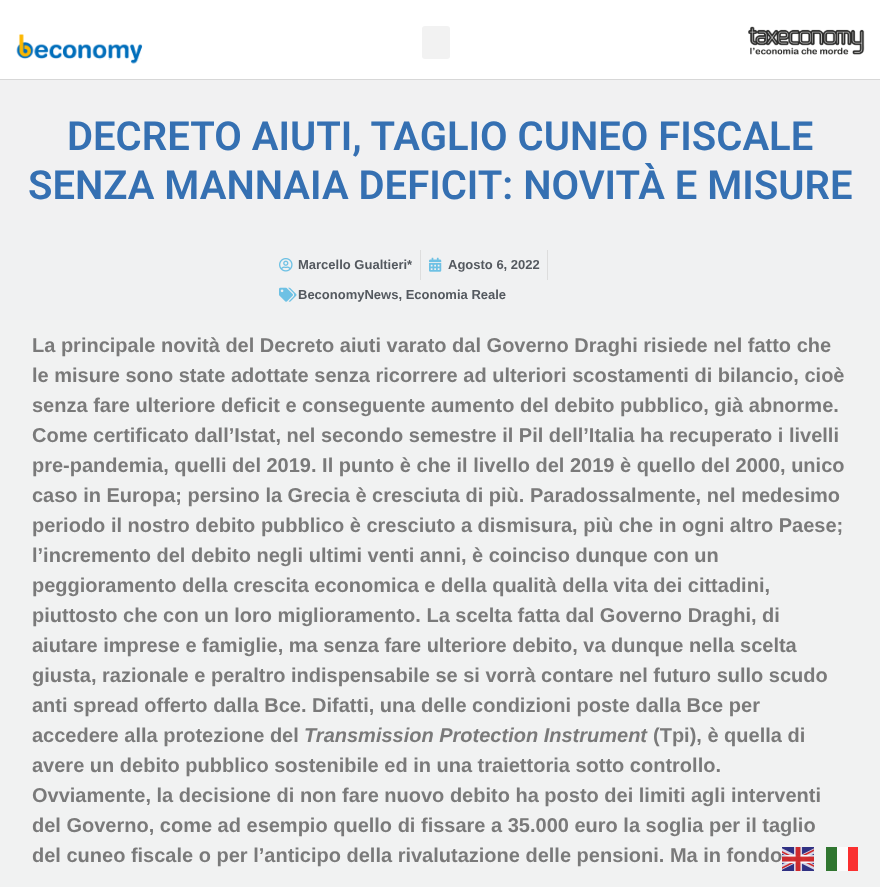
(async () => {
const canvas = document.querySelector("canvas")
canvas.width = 880
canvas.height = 887
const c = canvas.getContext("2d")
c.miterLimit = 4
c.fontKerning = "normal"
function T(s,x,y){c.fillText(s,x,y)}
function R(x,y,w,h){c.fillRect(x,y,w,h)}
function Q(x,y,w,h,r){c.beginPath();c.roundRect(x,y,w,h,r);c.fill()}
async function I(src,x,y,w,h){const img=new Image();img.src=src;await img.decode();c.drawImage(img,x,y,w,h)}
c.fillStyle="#fff"
R(0,0,880,887)
c.fillStyle="#d7d7d7"
R(0,79,880,1)
await I("1.png",16,34,127,30)
c.fillStyle="#f2f2f2"
Q(422,26,28,33,3)
await I("2.png",748,26,117,29)
c.fillStyle="#f1f1f2"
R(0,80,880,140)
c.font="600 40px Roboto"
c.fillStyle="#3570b2"
T("DECRETO AIUTI, TAGLIO CUNEO FISCALE",67,150)
T("SENZA MANNAIA DEFICIT: NOVITÀ E MISURE",28,199)
c.fillStyle="#f0f1f2"
R(0,220,880,100)
await I("3.png",279,258,14,14)
c.font="bold 13px Liberation Sans"
c.fillStyle="#54595f"
T("Marcello Gualtieri*",298,269)
c.fillStyle="#ddd"
R(420,250,1,30)
await I("4.png",429,257,13,15)
c.fillStyle="#54595f"
T("Agosto 6, 2022",448,269)
c.fillStyle="#ddd"
R(547,250,1,30)
await I("5.png",279,287,18,15)
c.fillStyle="#54595f"
T("BeconomyNews, Economia Reale",298,299)
c.fillStyle="#f1f2f2"
R(0,320,880,567)
c.font="bold 20px Liberation Sans"
c.fillStyle="#7a7a7a"
T("La principale novità del Decreto aiuti varato dal Governo Draghi risiede nel fatto che",32,352)
T("le misure sono state adottate senza ricorrere ad ulteriori scostamenti di bilancio, cioè",32,382)
T("senza fare ulteriore deficit e conseguente aumento del debito pubblico, già abnorme.",32,412)
T("Come certificato dall’Istat, nel secondo semestre il Pil dell’Italia ha recuperato i livelli",32,442)
T("pre-pandemia, quelli del 2019. Il punto è che il livello del 2019 è quello del 2000, unico",32,472)
T("caso in Europa; persino la Grecia è cresciuta di più. Paradossalmente, nel medesimo",32,502)
T("periodo il nostro debito pubblico è cresciuto a dismisura, più che in ogni altro Paese;",32,532)
T("l’incremento del debito negli ultimi venti anni, è coinciso dunque con un",32,562)
T("peggioramento della crescita economica e della qualità della vita dei cittadini,",32,592)
T("piuttosto che con un loro miglioramento. La scelta fatta dal Governo Draghi, di",32,622)
T("aiutare imprese e famiglie, ma senza fare ulteriore debito, va dunque nella scelta",32,652)
T("giusta, razionale e peraltro indispensabile se si vorrà contare nel futuro sullo scudo",32,682)
T("anti spread offerto dalla Bce. Difatti, una delle condizioni poste dalla Bce per",32,712)
T("accedere alla protezione del",32,742)
c.font="italic bold 20px Liberation Sans"
T("Transmission Protection Instrument",304,742)
c.font="bold 20px Liberation Sans"
T("(Tpi), è quella di",653,742)
T("avere un debito pubblico sostenibile ed in una traiettoria sotto controllo.",32,772)
T("Ovviamente, la decisione di non fare nuovo debito ha posto dei limiti agli interventi",32,802)
T("del Governo, come ad esempio quello di fissare a 35.000 euro la soglia per il taglio",32,832)
T("del cuneo fiscale o per l’anticipo della rivalutazione delle pensioni. Ma in fondo",32,862)
await I("6.png",782,847,32,24)
c.fillStyle="#307630"
R(826,847,11,24)
c.fillStyle="#fcfcfc"
R(837,847,11,24)
c.fillStyle="#fa3030"
R(848,847,10,24)
})()
